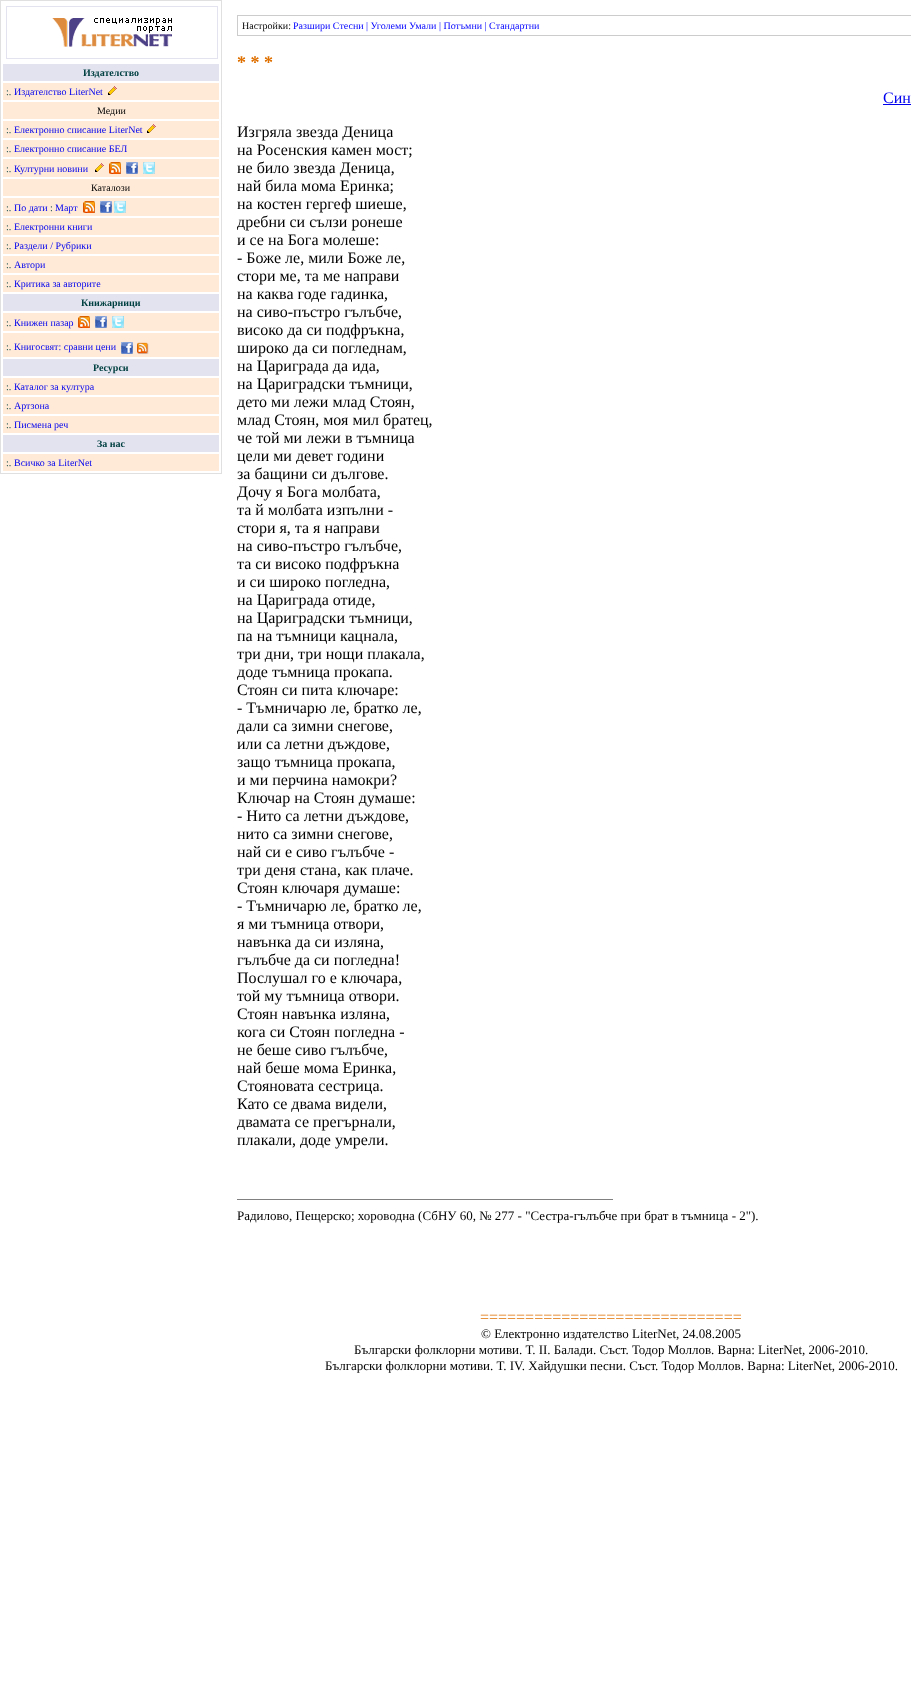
(async () => {
const canvas = document.querySelector("canvas")
canvas.width = 911
canvas.height = 1707
const c = canvas.getContext("2d")
c.miterLimit = 4
c.fontKerning = "normal"
function T(s,x,y){c.fillText(s,x,y)}
function R(x,y,w,h){c.fillRect(x,y,w,h)}
async function I(src,x,y,w,h){const img=new Image();img.src=src;await img.decode();c.drawImage(img,x,y,w,h)}
c.fillStyle="#fff"
R(0,0,911,1707)
c.strokeStyle="#e0e0e0"
c.strokeRect(.5,.5,221,473)
c.strokeStyle="#e3e3f0"
c.strokeRect(6.5,6.5,211,52)
await I("1.png",52,18,120,29)
c.fillStyle="#e3e3f0"
R(3,64,216,17)
c.font="bold 10px Liberation Serif"
c.fillStyle="#004040"
T("Издателство",83,76)
c.fillStyle="#ffead7"
R(3,83,216,17)
c.font="10px Liberation Serif"
c.fillStyle="#004040"
T(":.",6,95)
c.fillStyle="#00e"
T("Издателство LiterNet",14,95)
await I("2.png",108,86,9,9)
c.fillStyle="#ffead7"
R(3,102,216,17)
c.fillStyle="#000"
T("Медии",97,114)
c.fillStyle="#ffead7"
R(3,121,216,17)
c.fillStyle="#004040"
T(":.",6,133)
c.fillStyle="#00e"
T("Електронно списание LiterNet",14,133)
await I("2.png",147,124,9,9)
c.fillStyle="#ffead7"
R(3,140,216,17)
c.fillStyle="#004040"
T(":.",6,152)
c.fillStyle="#00e"
T("Електронно списание БЕЛ",14,152)
c.fillStyle="#ffead7"
R(3,159,216,18)
c.fillStyle="#004040"
T(":.",6,172)
c.fillStyle="#00e"
T("Културни новини",14,172)
await I("2.png",95,163,9,9)
await I("3.png",109,162,12,12)
await I("4.png",126,162,12,12)
await I("5.png",143,162,12,12)
c.fillStyle="#ffead7"
R(3,179,216,17)
c.fillStyle="#000"
T("Каталози",91,191)
c.fillStyle="#ffead7"
R(3,198,216,18)
c.fillStyle="#004040"
T(":.",6,211)
c.fillStyle="#00e"
T("По дати",14,211)
c.fillStyle="#004040"
T(":",50,211)
c.fillStyle="#00e"
T("Март",55,211)
await I("3.png",83,201,12,12)
await I("4.png",100,201,12,12)
await I("5.png",114,201,12,12)
c.fillStyle="#ffead7"
R(3,218,216,17)
c.fillStyle="#004040"
T(":.",6,230)
c.fillStyle="#00e"
T("Електронни книги",14,230)
c.fillStyle="#ffead7"
R(3,237,216,17)
c.fillStyle="#004040"
T(":.",6,249)
c.fillStyle="#00e"
T("Раздели / Рубрики",14,249)
c.fillStyle="#ffead7"
R(3,256,216,17)
c.fillStyle="#004040"
T(":.",6,268)
c.fillStyle="#00e"
T("Автори",14,268)
c.fillStyle="#ffead7"
R(3,275,216,17)
c.fillStyle="#004040"
T(":.",6,287)
c.fillStyle="#00e"
T("Критика за авторите",14,287)
c.fillStyle="#e3e3f0"
R(3,294,216,17)
c.font="bold 10px Liberation Serif"
c.fillStyle="#004040"
T("Книжарници",81,306)
c.fillStyle="#ffead7"
R(3,313,216,18)
c.font="10px Liberation Serif"
c.fillStyle="#004040"
T(":.",6,326)
c.fillStyle="#00e"
T("Книжен пазар",14,326)
await I("3.png",78,316,12,12)
await I("4.png",95,316,12,12)
await I("6.png",112,316,12,12)
c.fillStyle="#ffead7"
R(3,333,216,24)
c.fillStyle="#004040"
T(":.",6,350)
c.fillStyle="#00e"
T("Книгосвят: сравни цени",14,350)
await I("4.png",121,342,12,12)
await I("7.png",137,342,12,12)
c.fillStyle="#e3e3f0"
R(3,359,216,17)
c.font="bold 10px Liberation Serif"
c.fillStyle="#004040"
T("Ресурси",93,371)
c.fillStyle="#ffead7"
R(3,378,216,17)
c.font="10px Liberation Serif"
c.fillStyle="#004040"
T(":.",6,390)
c.fillStyle="#00e"
T("Каталог за култура",14,390)
c.fillStyle="#ffead7"
R(3,397,216,17)
c.fillStyle="#004040"
T(":.",6,409)
c.fillStyle="#00e"
T("Артзона",14,409)
c.fillStyle="#ffead7"
R(3,416,216,17)
c.fillStyle="#004040"
T(":.",6,428)
c.fillStyle="#00e"
T("Писмена реч",14,428)
c.fillStyle="#e3e3f0"
R(3,435,216,17)
c.font="bold 10px Liberation Serif"
c.fillStyle="#004040"
T("За нас",97,447)
c.fillStyle="#ffead7"
R(3,454,216,17)
c.font="10px Liberation Serif"
c.fillStyle="#004040"
T(":.",6,466)
c.fillStyle="#00e"
T("Всичко за LiterNet",14,466)
c.strokeStyle="#ccc"
c.strokeRect(237.5,15.5,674,20)
c.fillStyle="#000"
T("Настройки:",242,29)
c.fillStyle="#00f"
T("Разшири Стесни | Уголеми Умали | Потъмни | Стандартни",293,29)
c.font="bold 18px Liberation Serif"
c.fillStyle="#df7000"
T("* * *",237,68)
c.font="16px Liberation Serif"
c.fillStyle="#00e"
T("Син",883,103)
R(883,104,28,1)
c.fillStyle="#000"
T("Изгряла звезда Деница",237,137)
T("на Росенския камен мост;",237,155)
T("не било звезда Деница,",237,173)
T("най била мома Еринка;",237,191)
T("на костен гергеф шиеше,",237,209)
T("дребни си сълзи ронеше",237,227)
T("и се на Бога молеше:",237,245)
T("- Боже ле, мили Боже ле,",237,263)
T("стори ме, та ме направи",237,281)
T("на каква годе гадинка,",237,299)
T("на сиво-пъстро гълъбче,",237,317)
T("високо да си подфръкна,",237,335)
T("широко да си погледнам,",237,353)
T("на Цариграда да ида,",237,371)
T("на Цариградски тъмници,",237,389)
T("дето ми лежи млад Стоян,",237,407)
T("млад Стоян, моя мил братец,",237,425)
T("че той ми лежи в тъмница",237,443)
T("цели ми девет години",237,461)
T("за бащини си дългове.",237,479)
T("Дочу я Бога молбата,",237,497)
T("та й молбата изпълни -",237,515)
T("стори я, та я направи",237,533)
T("на сиво-пъстро гълъбче,",237,551)
T("та си високо подфръкна",237,569)
T("и си широко погледна,",237,587)
T("на Цариграда отиде,",237,605)
T("на Цариградски тъмници,",237,623)
T("па на тъмници кацнала,",237,641)
T("три дни, три нощи плакала,",237,659)
T("доде тъмница прокапа.",237,677)
T("Стоян си пита ключаре:",237,695)
T("- Тъмничарю ле, братко ле,",237,713)
T("дали са зимни снегове,",237,731)
T("или са летни дъждове,",237,749)
T("защо тъмница прокапа,",237,767)
T("и ми перчина намокри?",237,785)
T("Ключар на Стоян думаше:",237,803)
T("- Нито са летни дъждове,",237,821)
T("нито са зимни снегове,",237,839)
T("най си е сиво гълъбче -",237,857)
T("три деня стана, как плаче.",237,875)
T("Стоян ключаря думаше:",237,893)
T("- Тъмничарю ле, братко ле,",237,911)
T("я ми тъмница отвори,",237,929)
T("навънка да си изляна,",237,947)
T("гълъбче да си погледна!",237,965)
T("Послушал го е ключара,",237,983)
T("той му тъмница отвори.",237,1001)
T("Стоян навънка изляна,",237,1019)
T("кога си Стоян погледна -",237,1037)
T("не беше сиво гълъбче,",237,1055)
T("най беше мома Еринка,",237,1073)
T("Стояновата сестрица.",237,1091)
T("Като се двама видели,",237,1109)
T("двамата се прегърнали,",237,1127)
T("плакали, доде умрели.",237,1145)
c.fillStyle="#808080"
R(237,1199,376,1)
c.font="13px Liberation Serif"
c.fillStyle="#000"
T("Радилово, Пещерско; хороводна (СбНУ 60, № 277 - \"Сестра-гълъбче при брат в тъмница - 2\").",237,1220)
c.font="16px Liberation Serif"
c.fillStyle="#df7000"
T("=============================",480,1322)
c.font="13px Liberation Serif"
c.fillStyle="#000"
T("© Електронно издателство LiterNet, 24.08.2005",481,1338)
T("Български фолклорни мотиви. Т. II. Балади. Съст. Тодор Моллов. Варна: LiterNet, 2006-2010.",354,1354)
T("Български фолклорни мотиви. Т. IV. Хайдушки песни. Съст. Тодор Моллов. Варна: LiterNet, 2006-2010.",325,1370)
})()
